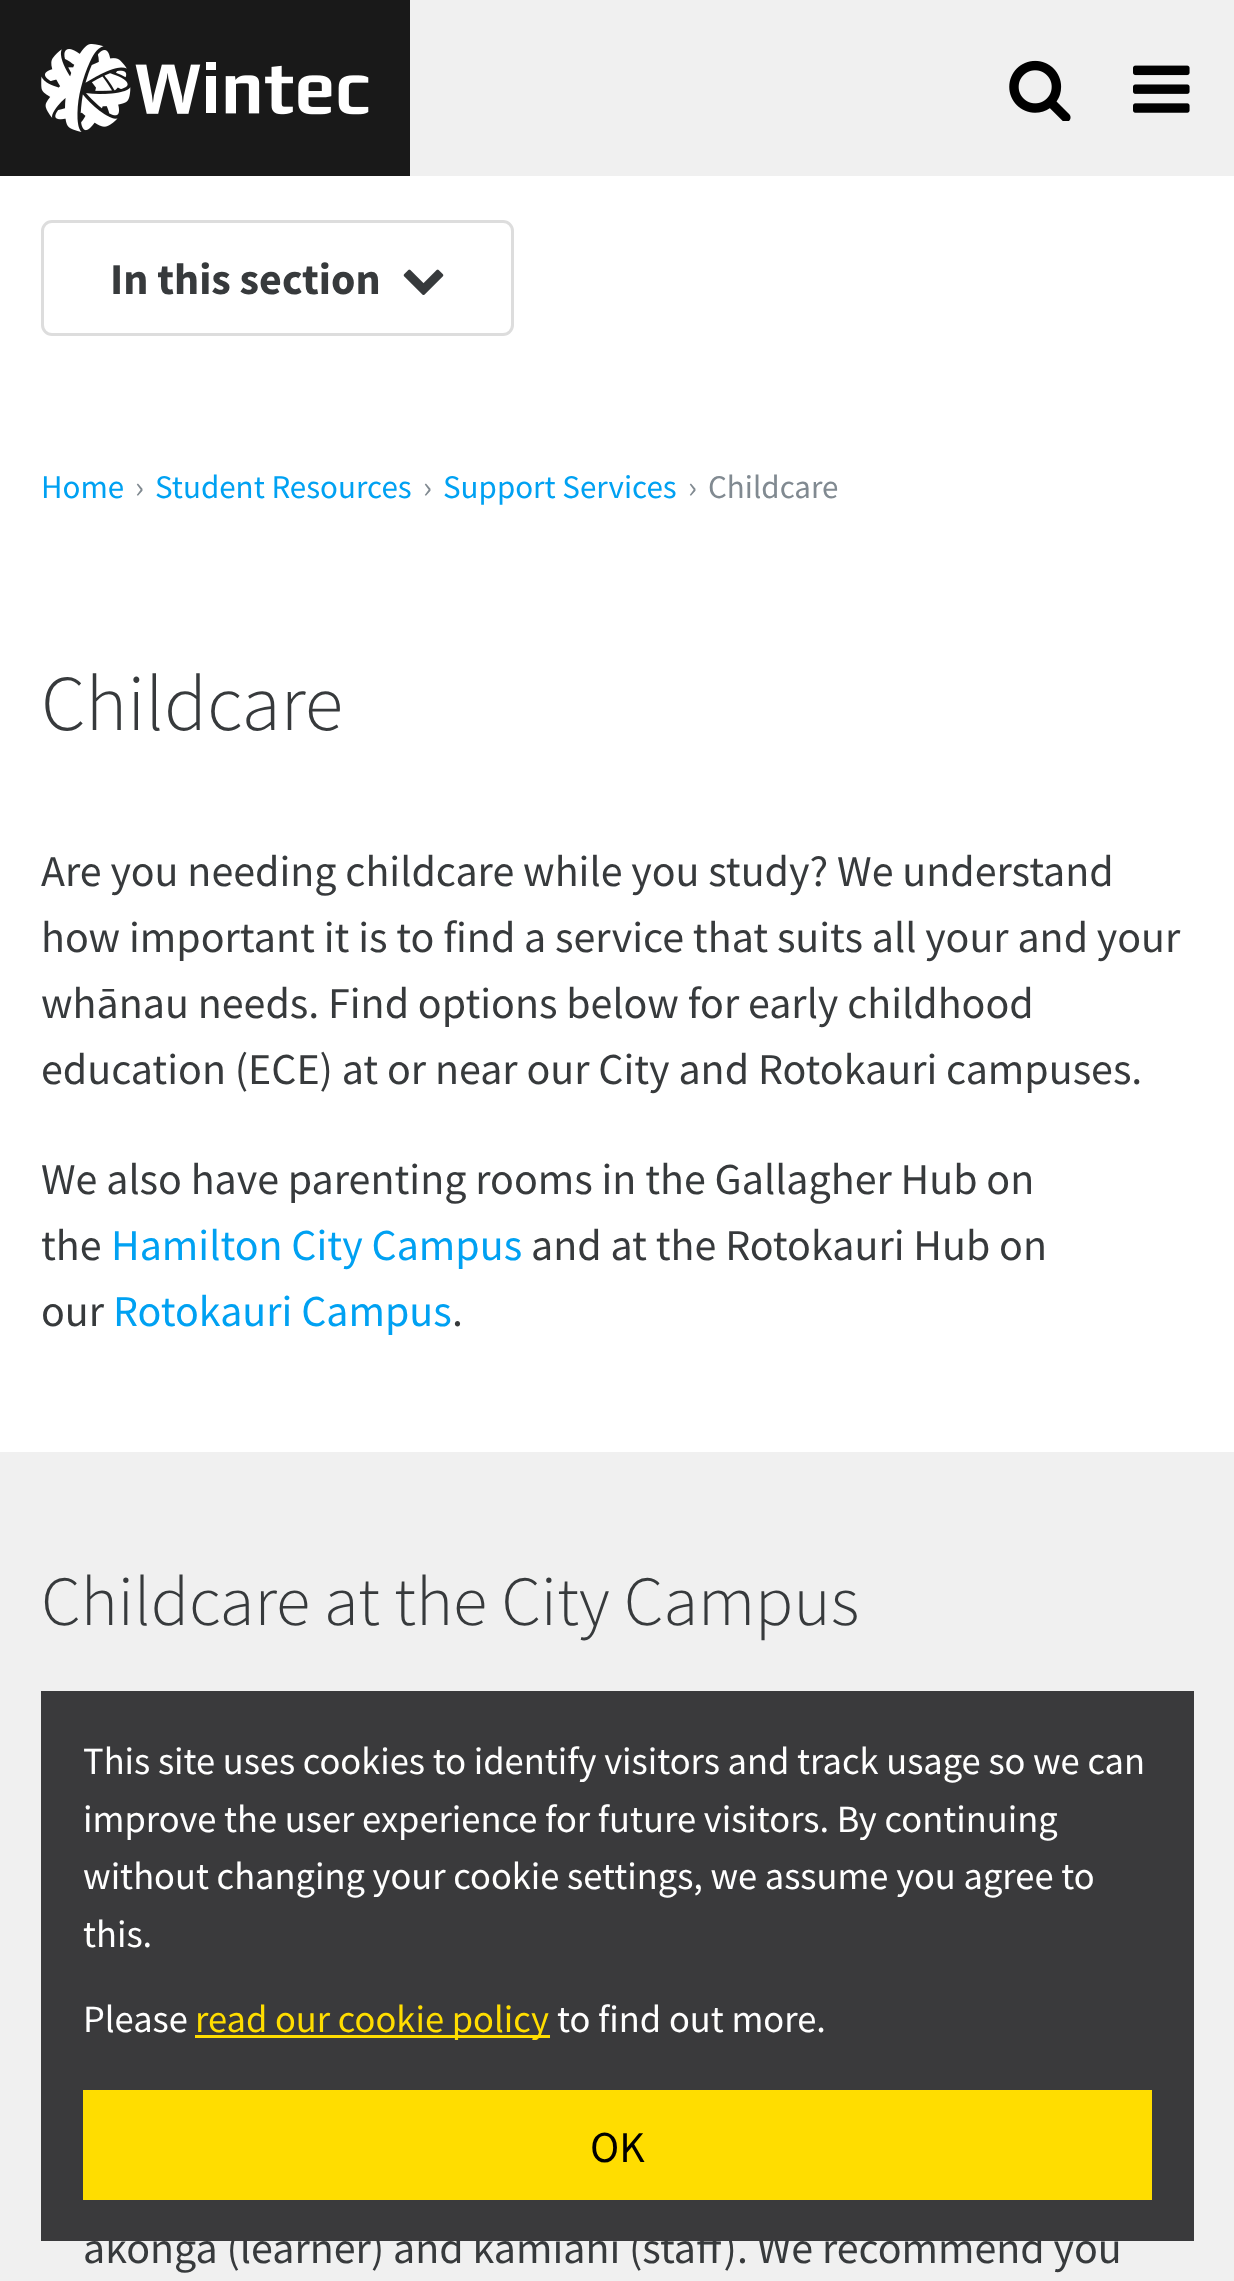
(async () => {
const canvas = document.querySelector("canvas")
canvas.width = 1234
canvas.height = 2281
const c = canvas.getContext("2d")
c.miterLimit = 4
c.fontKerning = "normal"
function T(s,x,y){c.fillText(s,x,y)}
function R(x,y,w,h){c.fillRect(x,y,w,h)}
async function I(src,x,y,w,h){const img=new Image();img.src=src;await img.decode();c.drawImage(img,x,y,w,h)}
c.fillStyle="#fff"
R(0,0,1234,2281)
c.fillStyle="#191919"
R(0,0,410,176)
await I("1.png",41,44,328,88)
c.fillStyle="#f0f0f0"
R(410,0,824,176)
await I("2.png",1009,60,62,61)
await I("3.png",1133,65,57,48)
c.beginPath()
c.roundRect(42.5,221.5,470,113,9.5)
c.strokeStyle="#ddd"
c.lineWidth=3
c.stroke()
c.font="bold 44px Source Sans Pro"
c.fillStyle="#373a3c"
T("In this section",110,294)
await I("4.png",403,269,41,26)
c.font="33px Source Sans Pro"
c.fillStyle="#00a1f2"
T("Home",41,498)
c.fillStyle="#818a91"
T("›",135,498)
c.fillStyle="#00a1f2"
T("Student Resources",155,498)
c.fillStyle="#818a91"
T("›",423,498)
c.fillStyle="#00a1f2"
T("Support Services",443,498)
c.fillStyle="#818a91"
T("›",688,498)
T("Childcare",708,498)
c.font="300 79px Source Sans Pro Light"
c.fillStyle="#373a3c"
T("Childcare",41,730)
c.font="44px Source Sans Pro"
T("Are you needing childcare while you study? We understand",41,886)
T("how important it is to find a service that suits all your and your",41,952)
T("whānau needs. Find options below for early childhood",41,1018)
T("education (ECE) at or near our City and Rotokauri campuses.",41,1084)
T("We also have parenting rooms in the Gallagher Hub on",41,1194)
T("the",41,1260)
c.fillStyle="#00a1f2"
T("Hamilton City Campus",111,1260)
c.fillStyle="#373a3c"
T("and at the Rotokauri Hub on",531,1260)
T("our",41,1326)
c.fillStyle="#00a1f2"
T("Rotokauri Campus",113,1326)
c.fillStyle="#373a3c"
T(".",452,1326)
c.fillStyle="#f0f0f0"
R(0,1452,1234,829)
c.font="300 70.4px Source Sans Pro Light"
c.fillStyle="#373a3c"
T("Childcare at the City Campus",41,1625)
c.font="44px Source Sans Pro"
T("ākonga (learner) and kamiahi (staff). We recommend you",83,2263)
c.fillStyle="#3a3a3c"
R(41,1691,1153,550)
c.font="38.5px Source Sans Pro"
c.fillStyle="#fff"
T("This site uses cookies to identify visitors and track usage so we can",83,1774)
T("improve the user experience for future visitors. By continuing",83,1832)
T("without changing your cookie settings, we assume you agree to",83,1889)
T("this.",83,1947)
T("Please",83,2032)
c.fillStyle="#fd0"
R(195,2035,355,3)
T("read our cookie policy",195,2032)
c.fillStyle="#fff"
T("to find out more.",557,2032)
c.fillStyle="#fd0"
R(83,2090,1069,110)
c.font="44px Source Sans Pro"
c.fillStyle="#000"
T("OK",590,2162)
})()
